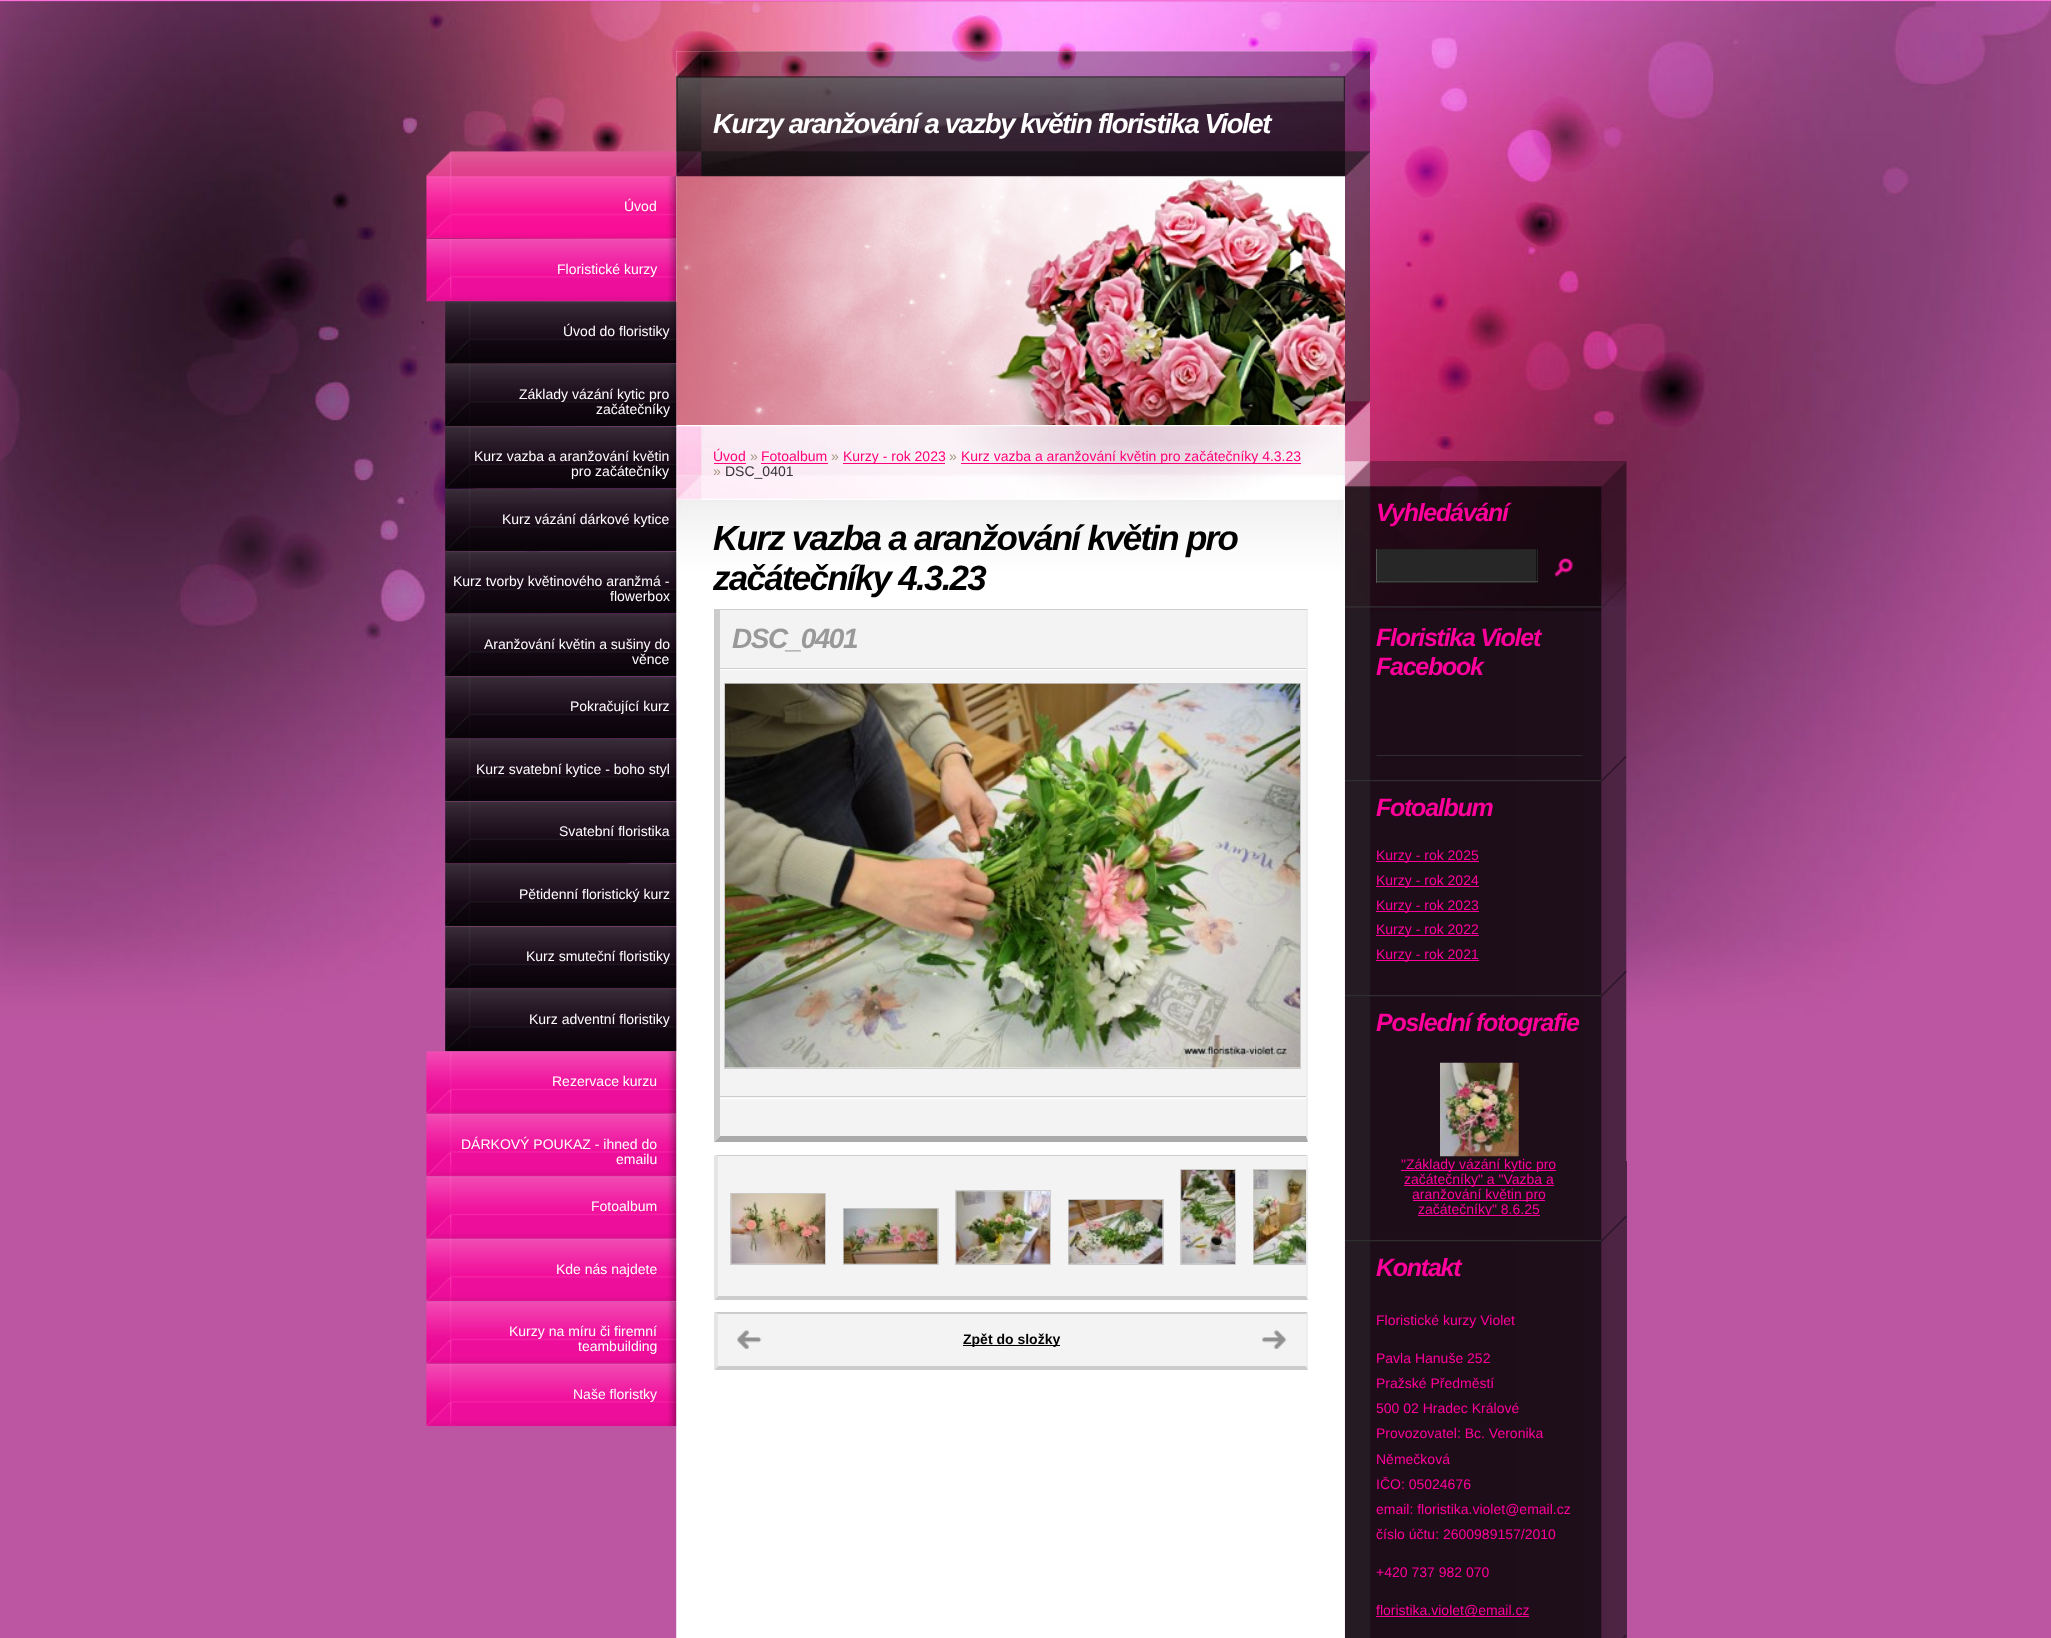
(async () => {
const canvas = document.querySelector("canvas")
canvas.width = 2051
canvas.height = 1638
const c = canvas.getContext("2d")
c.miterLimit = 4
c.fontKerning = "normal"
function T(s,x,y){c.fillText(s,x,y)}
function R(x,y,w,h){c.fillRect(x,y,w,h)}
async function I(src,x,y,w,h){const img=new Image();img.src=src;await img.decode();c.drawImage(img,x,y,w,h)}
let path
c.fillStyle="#bc56a3"
R(0,0,2051,1638)
await I("1.png",0,1,2051,1020)
c.fillStyle="#fc6edc"
R(0,0,2051,1)
await I("2.png",676,51,694,1587)
await I("23.png",676,426,669,274)
await I("34.png",1345,461,282,1177)
await I("24.png",676,426,694,74)
await I("3.png",1345,51,25,376)
await I("4.png",676,175,669,250)
await I("5.png",676,51,669,126)
c.letterSpacing="-1.4px"
c.font="italic bold 27.5px Liberation Sans"
c.fillStyle="#fff"
T("Kurzy aranžování a vazby květin floristika Violet",713,133)
await I("6.png",426,151,251,88)
c.letterSpacing="0px"
c.font="14px Liberation Sans"
T("Úvod",624,211)
await I("7.png",426,238,251,64)
T("Floristické kurzy",557,274)
await I("8.png",445,301,232,63)
T("Úvod do floristiky",563,336)
await I("9.png",445,364,232,63)
T("Základy vázání kytic pro",519,399)
T("začátečníky",596,414)
await I("10.png",445,426,232,63)
T("Kurz vazba a aranžování květin",474,461)
T("pro začátečníky",571,476)
await I("11.png",445,489,232,63)
T("Kurz vázání dárkové kytice",502,524)
await I("12.png",445,551,232,63)
T("Kurz tvorby květinového aranžmá -",453,586)
T("flowerbox",610,601)
await I("13.png",445,614,232,63)
T("Aranžování květin a sušiny do",484,649)
T("věnce",632,664)
await I("14.png",445,676,232,63)
T("Pokračující kurz",570,711)
await I("15.png",445,739,232,63)
T("Kurz svatební kytice - boho styl",476,774)
await I("16.png",445,801,232,63)
T("Svatební floristika",559,836)
await I("17.png",445,864,232,63)
T("Pětidenní floristický kurz",519,899)
await I("18.png",445,926,232,63)
T("Kurz smuteční floristiky",526,961)
await I("20.png",426,1051,251,63)
await I("19.png",445,989,232,63)
T("Kurz adventní floristiky",529,1024)
T("Rezervace kurzu",552,1086)
await I("21.png",426,1114,251,63)
T("DÁRKOVÝ POUKAZ - ihned do",461,1149)
T("emailu",616,1164)
await I("22.png",426,1176,251,63)
T("Fotoalbum",591,1211)
await I("21.png",426,1239,251,63)
T("Kde nás najdete",556,1274)
await I("22.png",426,1301,251,63)
T("Kurzy na míru či firemní",509,1336)
T("teambuilding",578,1351)
await I("21.png",426,1364,251,63)
T("Naše floristky",573,1399)
c.fillStyle="#ff0179"
T("Úvod",713,461)
R(714,463,32,1)
c.fillStyle="#a99985"
T("»",750,461)
c.fillStyle="#ff0179"
T("Fotoalbum",761,461)
R(761,463,67,1)
c.fillStyle="#a99985"
T("»",831,461)
c.fillStyle="#ff0179"
R(843,463,102,1)
T("Kurzy - rok 2023",843,461)
c.fillStyle="#a99985"
T("»",949,461)
c.fillStyle="#ff0179"
R(961,463,340,1)
T("Kurz vazba a aranžování květin pro začátečníky 4.3.23",961,461)
c.fillStyle="#a99985"
T("»",713,476)
c.fillStyle="#333"
T("DSC_0401",725,476)
c.letterSpacing="-1.75px"
c.font="italic bold 35px Liberation Sans"
c.fillStyle="#000"
T("Kurz vazba a aranžování květin pro",713,550)
T("začátečníky 4.3.23",713,590)
c.fillStyle="#f3f3f3"
R(720,610,586,526)
c.fillStyle="#ccc"
R(714,609,594,1)
c.fillStyle="#eee"
path = new Path2D("M1308 609v533l-2-6v-526z")
c.fill(path)
c.fillStyle="#aaa"
path = new Path2D("M1308 1142h-594l6-6h586z")
c.fill(path)
c.fillStyle="#ccc"
path = new Path2D("M714 1142v-533l6 1v526z")
c.fill(path)
R(720,668,586,1)
c.letterSpacing="-1.5px"
c.font="italic bold 28px Liberation Sans"
c.fillStyle="#999"
T("DSC_0401",732,648)
c.fillStyle="#fff"
R(720,669,586,1)
c.fillStyle="#ccc"
R(720,1096,586,1)
c.strokeStyle="#ccc"
c.strokeRect(724.5,683.5,576,385)
await I("25.png",725,683,575,385)
c.fillStyle="#fff"
R(720,1098,586,1)
c.fillStyle="#f3f3f3"
R(718,1156,588,140)
c.fillStyle="#ccc"
path = new Path2D("M714 1155h594l-2 1h-588z")
c.fill(path)
c.fillStyle="#eee"
path = new Path2D("M1308 1155v145l-2-4v-140z")
c.fill(path)
c.fillStyle="#ccc"
path = new Path2D("M1308 1300h-594l4-4h588z")
c.fill(path)
c.fillStyle="#e5e5e5"
path = new Path2D("M714 1300v-145l4 1v140z")
c.fill(path)
c.strokeRect(1180.5,1169.5,55,95)
c.save()
c.beginPath()
c.rect(718,1156,588,140)
c.clip()
c.strokeRect(1253.5,1169.5,54,95)
c.restore()
c.strokeRect(955.5,1190.5,95,74)
await I("26.png",1181,1170,54,94)
await I("27.png",1253,1170,54,94)
c.strokeRect(730.5,1193.5,95,71)
await I("28.png",956,1191,94,73)
await I("29.png",731,1193,94,71)
c.strokeRect(1068.5,1199.5,95,65)
c.strokeRect(843.5,1208.5,95,56)
await I("30.png",1068,1200,95,64)
await I("31.png",843,1208,95,56)
c.fillStyle="#f3f3f3"
R(718,1314,588,52)
c.fillStyle="#ccc"
path = new Path2D("M714 1312h594l-2 2h-588z")
c.fill(path)
c.fillStyle="#eee"
path = new Path2D("M1308 1312v58l-2-4v-52z")
c.fill(path)
c.fillStyle="#ccc"
path = new Path2D("M1308 1370h-594l4-4h588z")
c.fill(path)
c.fillStyle="#e5e5e5"
path = new Path2D("M714 1370v-58l4 2v52z")
c.fill(path)
await I("32.png",737,1330,25,19)
c.fillStyle="#000"
R(963,1345,97,1)
c.letterSpacing="0px"
c.font="bold 14px Liberation Sans"
T("Zpět do složky",963,1344)
await I("33.png",1262,1330,25,19)
c.fillStyle="#4d2444"
R(1626,1161,1,477)
await I("35.png",1345,461,282,150)
c.letterSpacing="-1.25px"
c.font="italic bold 25px Liberation Sans"
c.fillStyle="#ff009b"
T("Vyhledávání",1376,521)
c.fillStyle="#272727"
R(1377,550,161,33)
c.fillStyle="#222"
R(1376,549,162,1)
c.fillStyle="#111"
R(1536,549,1,34)
c.fillStyle="#444"
R(1376,581,162,1)
c.fillStyle="#555"
R(1376,549,1,34)
await I("36.png",1554,558,19,19)
await I("37.png",1345,756,282,26)
c.fillStyle="#ff009b"
T("Floristika Violet",1376,646)
T("Facebook",1376,675)
await I("38.png",1376,755,207,1)
await I("39.png",1345,971,282,26)
T("Fotoalbum",1376,816)
R(1376,861,103,1)
c.letterSpacing="0px"
c.font="14px Liberation Sans"
T("Kurzy - rok 2025",1376,860)
R(1376,886,103,1)
T("Kurzy - rok 2024",1376,885)
R(1376,911,103,1)
T("Kurzy - rok 2023",1376,910)
R(1376,935,103,1)
T("Kurzy - rok 2022",1376,934)
R(1376,960,103,1)
T("Kurzy - rok 2021",1376,959)
await I("40.png",1345,1216,282,26)
c.letterSpacing="-1.25px"
c.font="italic bold 25px Liberation Sans"
T("Poslední fotografie",1376,1031)
await I("41.png",1440,1062,79,95)
R(1401,1170,155,1)
c.letterSpacing="0px"
c.font="14px Liberation Sans"
T("\"Základy vázání kytic pro",1401,1169)
R(1404,1185,150,1)
T("začátečníky\" a \"Vazba a",1404,1184)
R(1413,1200,132,1)
T("aranžování květin pro",1412,1199)
R(1418,1215,122,1)
c.save()
c.beginPath()
c.rect(1376,1063,250,153)
c.clip()
T("začátečníky\" 8.6.25",1418,1214)
c.restore()
await I("42.png",1622,1635,5,3)
c.letterSpacing="-1.25px"
c.font="italic bold 25px Liberation Sans"
T("Kontakt",1376,1276)
c.letterSpacing="0px"
c.font="14px Liberation Sans"
T("Floristické kurzy Violet",1376,1325)
T("Pavla Hanuše 252",1376,1363)
T("Pražské Předměstí",1376,1388)
T("500 02 Hradec Králové",1376,1413)
T("Provozovatel: Bc. Veronika",1376,1438)
T("Němečková",1376,1464)
T("IČO: 05024676",1376,1489)
T("email: floristika.violet@email.cz",1376,1514)
T("číslo účtu: 2600989157/2010",1376,1539)
T("+420 737 982 070",1376,1577)
R(1376,1616,153,1)
T("floristika.violet@email.cz",1376,1615)
})()
